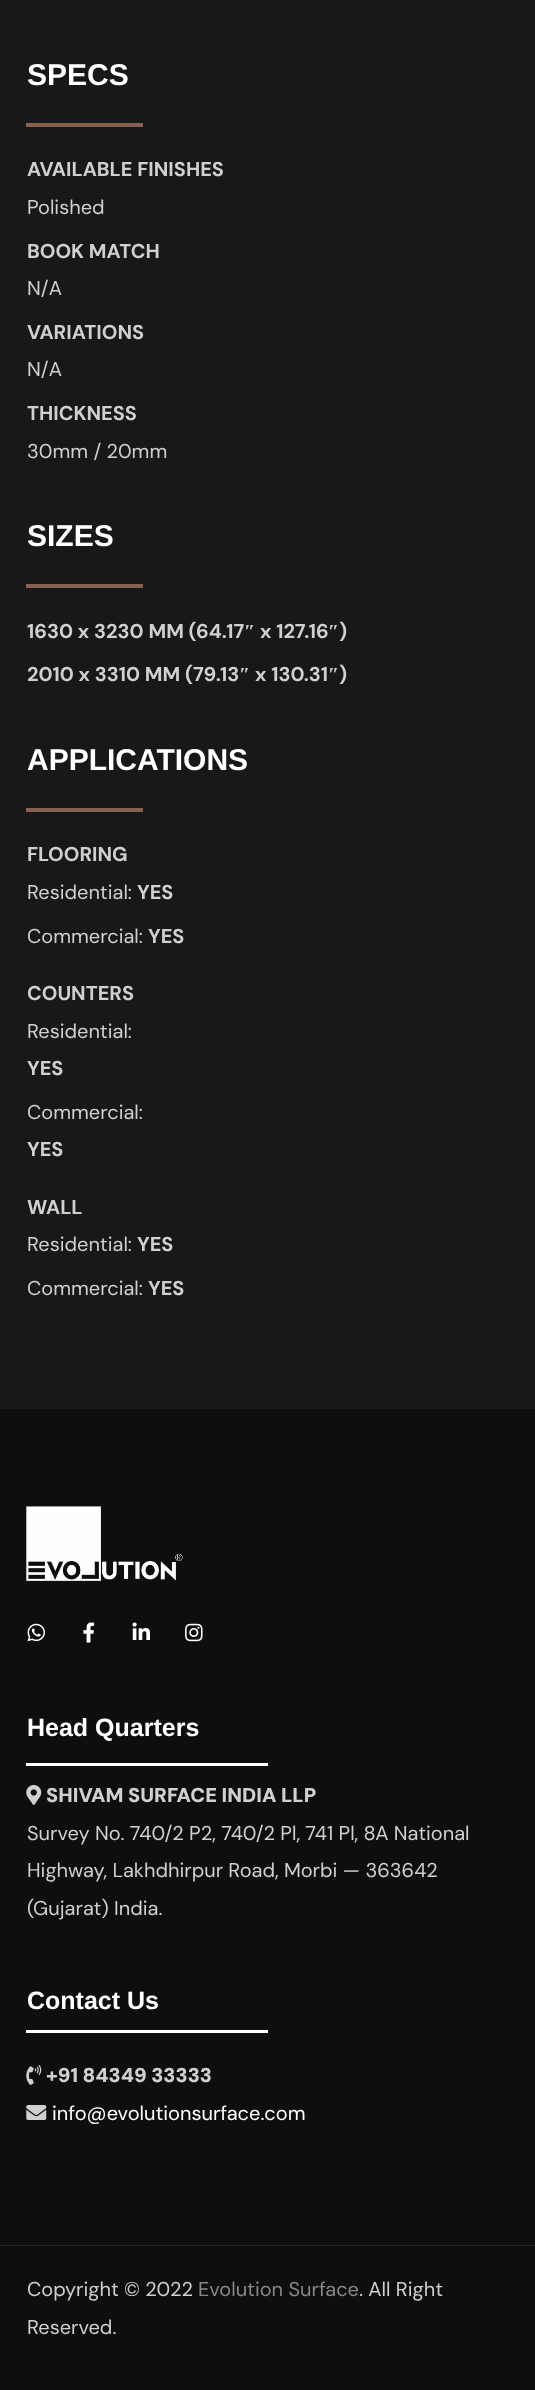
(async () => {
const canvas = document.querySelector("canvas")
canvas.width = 535
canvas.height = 2390
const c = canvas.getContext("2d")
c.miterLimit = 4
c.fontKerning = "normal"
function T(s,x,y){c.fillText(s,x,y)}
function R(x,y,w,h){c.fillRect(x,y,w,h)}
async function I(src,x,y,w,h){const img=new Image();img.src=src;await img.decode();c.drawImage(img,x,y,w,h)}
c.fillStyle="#181818"
R(0,0,535,2390)
c.font="bold 30px Arimo"
c.fillStyle="#fff"
T("SPECS",27,85)
c.fillStyle="#86614f"
R(26,123,117,4)
c.font="bold 20px DM Sans"
c.fillStyle="#d0d0d0"
T("AVAILABLE FINISHES",27,176)
c.font="20px DM Sans"
T("Polished",27,214)
c.font="bold 20px DM Sans"
T("BOOK MATCH",27,258)
c.font="20px DM Sans"
T("N/A",27,295)
c.font="bold 20px DM Sans"
T("VARIATIONS",27,339)
c.font="20px DM Sans"
T("N/A",27,376)
c.font="bold 20px DM Sans"
T("THICKNESS",27,420)
c.font="20px DM Sans"
T("30mm / 20mm",27,458)
c.font="bold 30px Arimo"
c.fillStyle="#fff"
T("SIZES",27,546)
c.fillStyle="#86614f"
R(26,584,117,4)
c.font="bold 20px DM Sans"
c.fillStyle="#d0d0d0"
T("1630 x 3230 MM (64.17",27,638)
c.font="bold 20px Liberation Serif"
T("″",244,638)
c.font="bold 20px DM Sans"
T("x 127.16",260,638)
c.font="bold 20px Liberation Serif"
T("″",328,638)
c.font="bold 20px DM Sans"
T(")",339,638)
T("2010 x 3310 MM (79.13",27,681)
c.font="bold 20px Liberation Serif"
T("″",239,681)
c.font="bold 20px DM Sans"
T("x 130.31",255,681)
c.font="bold 20px Liberation Serif"
T("″",328,681)
c.font="bold 20px DM Sans"
T(")",339,681)
c.font="bold 30px Arimo"
c.fillStyle="#fff"
T("APPLICATIONS",27,770)
c.fillStyle="#86614f"
R(26,808,117,4)
c.font="bold 20px DM Sans"
c.fillStyle="#d0d0d0"
T("FLOORING",27,861)
c.font="20px DM Sans"
T("Residential:",27,899)
c.font="bold 20px DM Sans"
T("YES",137,899)
c.font="20px DM Sans"
T("Commercial:",27,943)
c.font="bold 20px DM Sans"
T("YES",148,943)
T("COUNTERS",27,1000)
c.font="20px DM Sans"
T("Residential:",27,1038)
c.font="bold 20px DM Sans"
T("YES",27,1075)
c.font="20px DM Sans"
T("Commercial:",27,1119)
c.font="bold 20px DM Sans"
T("YES",27,1156)
T("WALL",27,1214)
c.font="20px DM Sans"
T("Residential:",27,1251)
c.font="bold 20px DM Sans"
T("YES",137,1251)
c.font="20px DM Sans"
T("Commercial:",27,1295)
c.font="bold 20px DM Sans"
T("YES",148,1295)
c.fillStyle="#0e0e0e"
R(0,1409,535,836)
await I("1.png",26,1506,157,75)
await I("2.png",27,1623,18,19)
await I("3.png",83,1622,12,21)
await I("4.png",132,1622,18,18)
await I("5.png",185,1623,18,19)
c.font="bold 25px Arimo"
c.fillStyle="#fff"
T("Head Quarters",27,1736)
R(26,1763,242,3)
await I("6.png",26,1785,16,20)
c.font="900 20px DM Sans"
c.fillStyle="#d0d0d0"
T("SHIVAM SURFACE INDIA LLP",46,1802)
c.font="20px DM Sans"
T("Survey No. 740/2 P2, 740/2 Pl, 741 Pl, 8A National",27,1840)
T("Highway, Lakhdhirpur Road, Morbi — 363642",27,1877)
T("(Gujarat) India.",27,1915)
c.font="bold 25px Arimo"
c.fillStyle="#fff"
T("Contact Us",27,2009)
R(26,2030,242,3)
await I("7.png",26,2065,16,20)
c.font="900 20px DM Sans"
c.fillStyle="#d0d0d0"
T("+91 84349 33333",46,2082)
await I("8.png",26,2105,21,15)
c.font="20px DM Sans"
c.fillStyle="#fff"
T("info@evolutionsurface.com",52,2120)
c.fillStyle="#0e0e0e"
R(0,2246,535,144)
c.fillStyle="#262626"
R(0,2245,535,1)
c.fillStyle="#d0d0d0"
T("Copyright © 2022",27,2296)
c.fillStyle="#888"
T("Evolution Surface",198,2296)
c.fillStyle="#d0d0d0"
T(". All Right",359,2296)
T("Reserved.",27,2334)
})()
